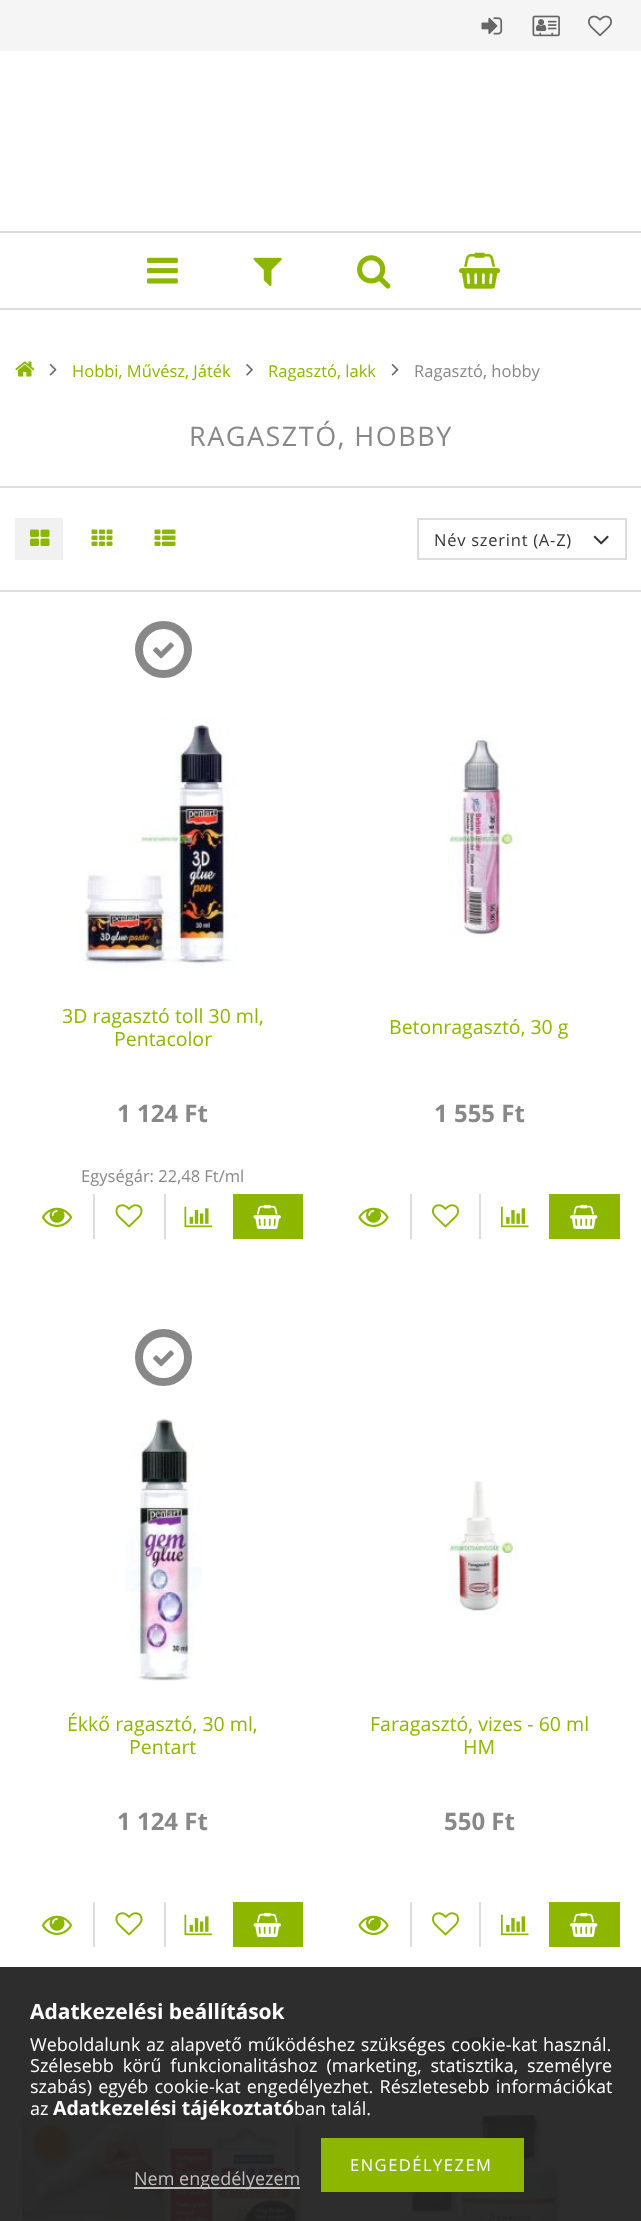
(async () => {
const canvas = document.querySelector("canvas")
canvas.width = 641
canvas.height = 2221
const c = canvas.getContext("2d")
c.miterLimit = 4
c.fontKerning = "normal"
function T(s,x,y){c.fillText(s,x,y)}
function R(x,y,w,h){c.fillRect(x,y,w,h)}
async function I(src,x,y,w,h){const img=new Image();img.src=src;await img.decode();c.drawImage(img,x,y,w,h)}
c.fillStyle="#fff"
R(0,0,641,2221)
c.fillStyle="#2d2d2d"
R(0,1967,641,254)
c.fillStyle="#f5f5f5"
R(0,0,641,51)
await I("1.png",481,17,22,18)
await I("2.png",532,15,28,22)
await I("3.png",588,15,24,22)
c.fillStyle="#ddd"
R(0,231,641,2)
R(0,308,641,2)
await I("4.png",147,257,31,27)
await I("5.png",253,257,29,30)
await I("6.png",357,255,34,34)
await I("7.png",459,252,42,37)
await I("8.png",15,361,20,16)
await I("9.png",49,364,8,12)
c.font="16.5px Open Sans"
c.fillStyle="#8db600"
T("Hobbi, Művész, Játék",72,377)
await I("10.png",246,364,7,12)
T("Ragasztó, lakk",268,377)
await I("9.png",391,364,8,12)
c.fillStyle="#888"
T("Ragasztó, hobby",414,377)
c.letterSpacing="1.5px"
c.font="27px Open Sans"
T("RAGASZTÓ, HOBBY",189,446)
c.fillStyle="#ddd"
R(0,486,641,2)
c.fillStyle="#f1f1f1"
R(15,518,48,42)
await I("11.png",30,529,20,17)
await I("12.png",91,529,22,17)
await I("13.png",154,529,22,17)
c.strokeStyle="#ddd"
c.lineWidth=2
c.strokeRect(418,519,208,40)
c.letterSpacing="0.75px"
c.font="16.5px Open Sans"
c.fillStyle="#333"
T("Név szerint (A-Z)",434,546)
await I("14.png",593,535,16,10)
c.fillStyle="#ddd"
R(0,590,641,2)
c.beginPath()
c.arc(163.5,649.5,24.5,0,7)
c.strokeStyle="#888"
c.lineWidth=8
c.stroke()
await I("15.png",153,642,21,17)
await I("16.png",76,717,162,251)
c.letterSpacing="0px"
c.font="19.5px Open Sans"
c.fillStyle="#8db600"
T("3D ragasztó toll 30 ml,",62,1023)
T("Pentacolor",114,1046)
c.font="bold 24px Open Sans"
c.fillStyle="#888"
T("1 124 Ft",117,1122)
c.font="16.5px Open Sans"
T("Egységár: 22,48 Ft/ml",81,1182)
await I("17.png",42,1207,30,20)
c.fillStyle="#ddd"
R(93,1194,2,45)
await I("18.png",115,1204,28,24)
R(164,1194,2,45)
await I("19.png",184,1206,28,22)
c.fillStyle="#8db600"
R(233,1194,70,45)
await I("20.png",253,1204,28,25)
await I("21.png",447,735,72,202)
c.font="19.5px Open Sans"
T("Betonragasztó, 30 g",389,1034)
c.font="bold 24px Open Sans"
c.fillStyle="#888"
T("1 555 Ft",434,1122)
await I("22.png",358,1207,31,20)
c.fillStyle="#ddd"
R(410,1194,2,45)
await I("23.png",432,1204,27,24)
R(479,1194,2,45)
await I("24.png",501,1206,28,22)
c.fillStyle="#8db600"
R(549,1194,71,45)
await I("25.png",570,1204,28,25)
c.beginPath()
c.arc(163.5,1357.5,24.5,0,7)
c.stroke()
await I("15.png",153,1350,21,17)
await I("26.png",125,1416,77,265)
c.font="19.5px Open Sans"
T("Ékkő ragasztó, 30 ml,",67,1731)
T("Pentart",129,1754)
c.font="bold 24px Open Sans"
c.fillStyle="#888"
T("1 124 Ft",117,1830)
await I("17.png",42,1915,30,20)
c.fillStyle="#ddd"
R(93,1902,2,45)
await I("18.png",115,1912,28,24)
R(164,1902,2,45)
await I("19.png",184,1914,28,22)
c.fillStyle="#8db600"
R(233,1902,70,45)
await I("20.png",253,1912,28,25)
await I("27.png",447,1479,72,133)
c.font="19.5px Open Sans"
T("Faragasztó, vizes - 60 ml",370,1731)
T("HM",463,1754)
c.font="bold 24px Open Sans"
c.fillStyle="#888"
T("550 Ft",444,1830)
await I("22.png",358,1915,31,20)
c.fillStyle="#ddd"
R(410,1902,2,45)
await I("23.png",432,1912,27,24)
R(479,1902,2,45)
await I("24.png",501,1914,28,22)
c.fillStyle="#8db600"
R(549,1902,71,45)
await I("25.png",570,1912,28,25)
await I("28.png",22,2115,281,106)
c.beginPath()
c.arc(478.5,2065.5,24.5,0,7)
c.strokeStyle="#272727"
c.stroke()
await I("29.png",468,2058,21,17)
await I("30.png",395,2115,167,106)
c.font="bold 21px Open Sans"
c.fillStyle="#fff"
T("Adatkezelési beállítások",30,2019)
c.wordSpacing="1px"
c.font="18px Open Sans"
T("Weboldalunk az alapvető működéshez szükséges cookie-kat használ.",30,2051)
c.wordSpacing="4.25px"
T("Szélesebb körű funkcionalitáshoz (marketing, statisztika, személyre",30,2072)
c.wordSpacing="1.5px"
T("szabás) egyéb cookie-kat engedélyezhet. Részletesebb információkat",30,2093)
c.wordSpacing="0px"
T("az",30,2115)
c.font="bold 19.5px Open Sans"
T("Adatkezelési tájékoztató",53,2115)
c.font="18px Open Sans"
T("ban talál.",294,2115)
c.fillStyle="#8db600"
R(321,2138,203,54)
c.letterSpacing="1.5px"
c.font="16.5px Open Sans"
c.fillStyle="#fff"
T("ENGEDÉLYEZEM",350,2171)
c.fillStyle="#ffffffb3"
R(134,2187,166,2)
c.letterSpacing="0px"
c.font="18px Open Sans"
c.fillStyle="#c0bfbf"
T("Nem engedélyezem",134,2185)
})()
